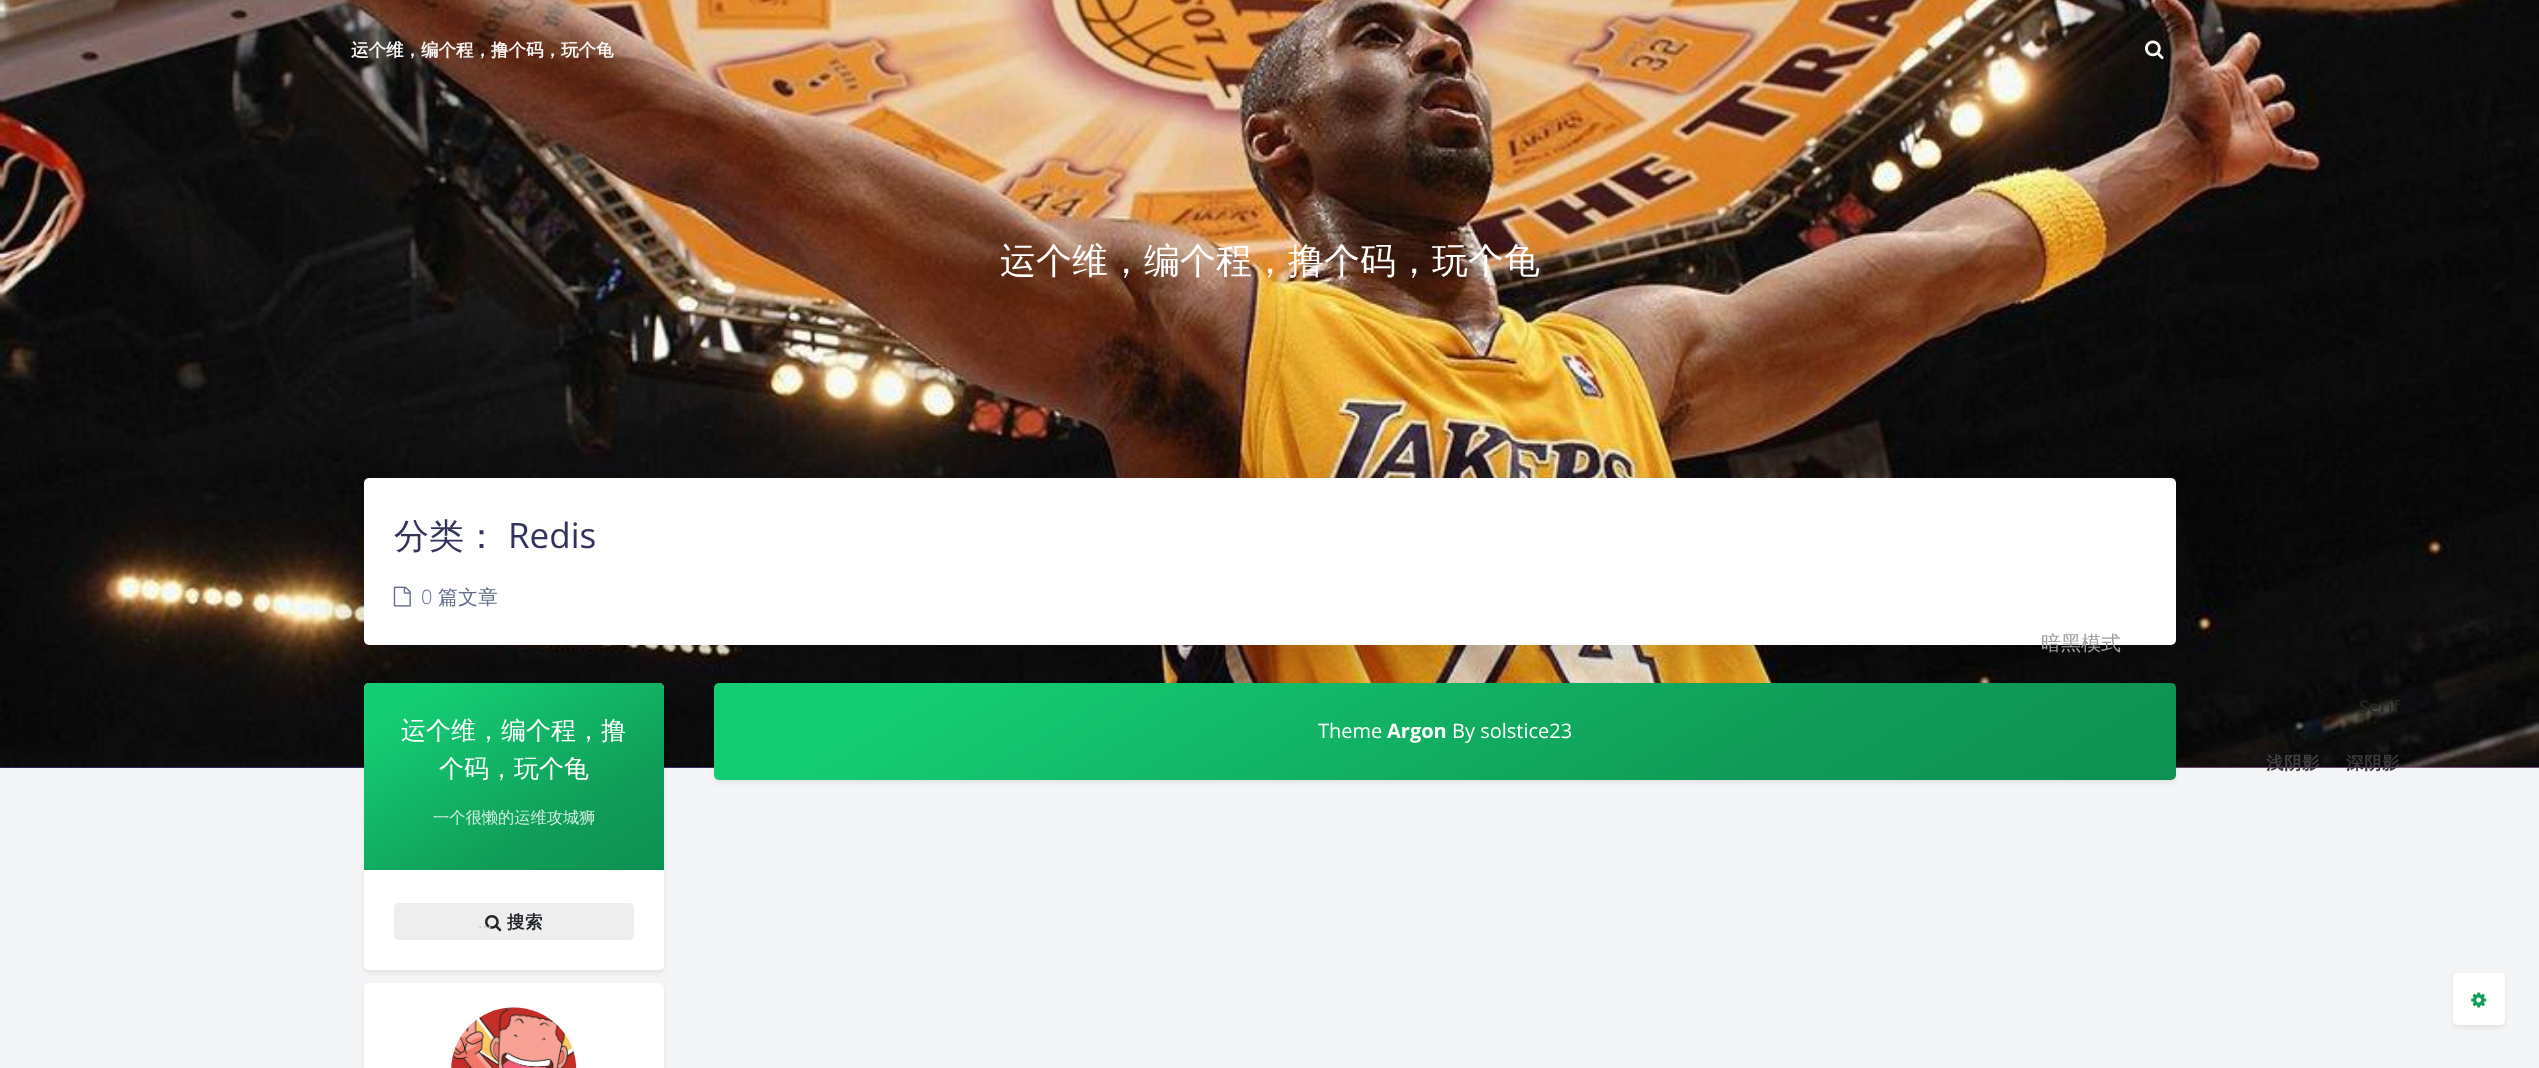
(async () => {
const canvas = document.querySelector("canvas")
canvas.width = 2539
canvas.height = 1068
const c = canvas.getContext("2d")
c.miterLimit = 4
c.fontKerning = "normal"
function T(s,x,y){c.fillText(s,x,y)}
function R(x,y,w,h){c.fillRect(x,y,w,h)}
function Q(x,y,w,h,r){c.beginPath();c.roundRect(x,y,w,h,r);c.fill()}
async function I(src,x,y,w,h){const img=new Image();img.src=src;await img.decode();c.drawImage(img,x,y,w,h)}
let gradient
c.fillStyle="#f4f5f7"
R(0,0,2539,1068)
gradient = c.createLinearGradient(786,-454,1754,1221)
gradient.addColorStop(.15,"#281483")
gradient.addColorStop(.7,"#8f6ed5")
gradient.addColorStop(.94,"#d782d9")
c.fillStyle = gradient
R(0,767,2539,1)
await I("2.png",0,0,2539,768)
c.font="bold 17.5px WenQuanYi Zen Hei"
c.fillStyle="#f7f5f4"
T("运个维，编个程，撸个码，玩个龟",351,56)
await I("1.png",2145,40,19,20)
c.font="500 36px WenQuanYi Zen Hei"
c.fillStyle="#fff"
T("运个维，编个程，撸个码，玩个龟",1000,273)
c.fillStyle="#0000002e"
c.filter="blur(30px)"
c.beginPath()
c.roundRect(364,498,1812,167,5)
c.fill()
c.filter="none"
c.fillStyle="#fff"
Q(364,478,1812,167,5)
c.font="500 35px WenQuanYi Zen Hei"
c.fillStyle="#32325d"
T("分类：",394,548)
c.font="35px Open Sans"
T("Redis",508,548)
await I("3.png",393,586,18,21)
c.font="300 20px Open Sans"
c.fillStyle="#636f8c"
T("0",421,604)
c.font="500 20px WenQuanYi Zen Hei"
T("篇文章",438,604)
c.fillStyle="#00000012"
c.filter="blur(2.5px)"
c.beginPath()
c.roundRect(364,685,300,288,5)
c.fill()
c.filter="none"
c.fillStyle="#fff"
Q(364,683,300,287,5)
gradient = c.createLinearGradient(436,641,592,912)
gradient.addColorStop(.15,"#14cc73")
gradient.addColorStop(.7,"#109d58")
gradient.addColorStop(.94,"#0e9253")
c.fillStyle = gradient
c.beginPath()
c.roundRect(364,683,300,187,[5,5,0,0])
c.fill()
c.font="500 25px WenQuanYi Zen Hei"
c.fillStyle="#fff"
T("运个维，编个程，撸",401,739)
T("个码，玩个龟",439,777)
c.font="500 16.25px WenQuanYi Zen Hei"
c.fillStyle="#cfedde"
T("一个很懒的运维攻城狮",433,823)
c.fillStyle="#eee"
Q(394,903,240,37,5)
await I("4.png",485,915,17,17)
c.font="17.5px Open Sans"
c.fillStyle="#c6c7c7"
T("...",478,928)
c.letterSpacing="0.5px"
c.font="bold 17.5px WenQuanYi Zen Hei"
c.fillStyle="#212529"
T("搜索",507,928)
c.fillStyle="#00000012"
c.filter="blur(2.5px)"
c.beginPath()
c.roundRect(364,985,300,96,5)
c.fill()
c.filter="none"
c.fillStyle="#fff"
Q(364,983,300,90,5)
c.fillStyle="#00000012"
c.filter="blur(2.5px)"
c.beginPath()
c.roundRect(451,1010,125,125,62.5)
c.fill()
c.filter="none"
c.fillStyle="#7f7f7f1a"
Q(451,1008,125,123,62.5)
await I("5.png",451,1007,126,61)
c.fillStyle="#00000012"
c.filter="blur(2.5px)"
c.beginPath()
c.roundRect(714,685,1462,98,5)
c.fill()
c.filter="none"
gradient = c.createLinearGradient(1241,378,1649,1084)
gradient.addColorStop(.15,"#14cc73")
gradient.addColorStop(.7,"#109d58")
gradient.addColorStop(.94,"#0e9253")
c.fillStyle = gradient
Q(714,683,1462,97,5)
c.letterSpacing="0px"
c.font="20px Open Sans"
c.fillStyle="#fff"
T("Theme",1318,738)
c.font="bold 20px Open Sans"
T("Argon",1387,738)
c.font="20px Open Sans"
T("By solstice23",1452,738)
c.font="500 20px WenQuanYi Zen Hei"
c.fillStyle="#9f9f9f"
T("暗黑模式",2041,650)
c.letterSpacing="0.5px"
c.font="600 17.5px Open Sans"
c.fillStyle="#272623"
T("Serif",2359,713)
c.font="bold 17.5px WenQuanYi Zen Hei"
c.fillStyle="#434043"
T("浅阴影",2266,769)
c.fillStyle="#3d3a3d"
T("深阴影",2346,769)
c.fillStyle="#00000012"
c.filter="blur(2.5px)"
c.beginPath()
c.roundRect(2453,975,52,53,5)
c.fill()
c.filter="none"
c.fillStyle="#fff"
Q(2453,973,52,52,5)
await I("6.png",2471,992,16,16)
})()
